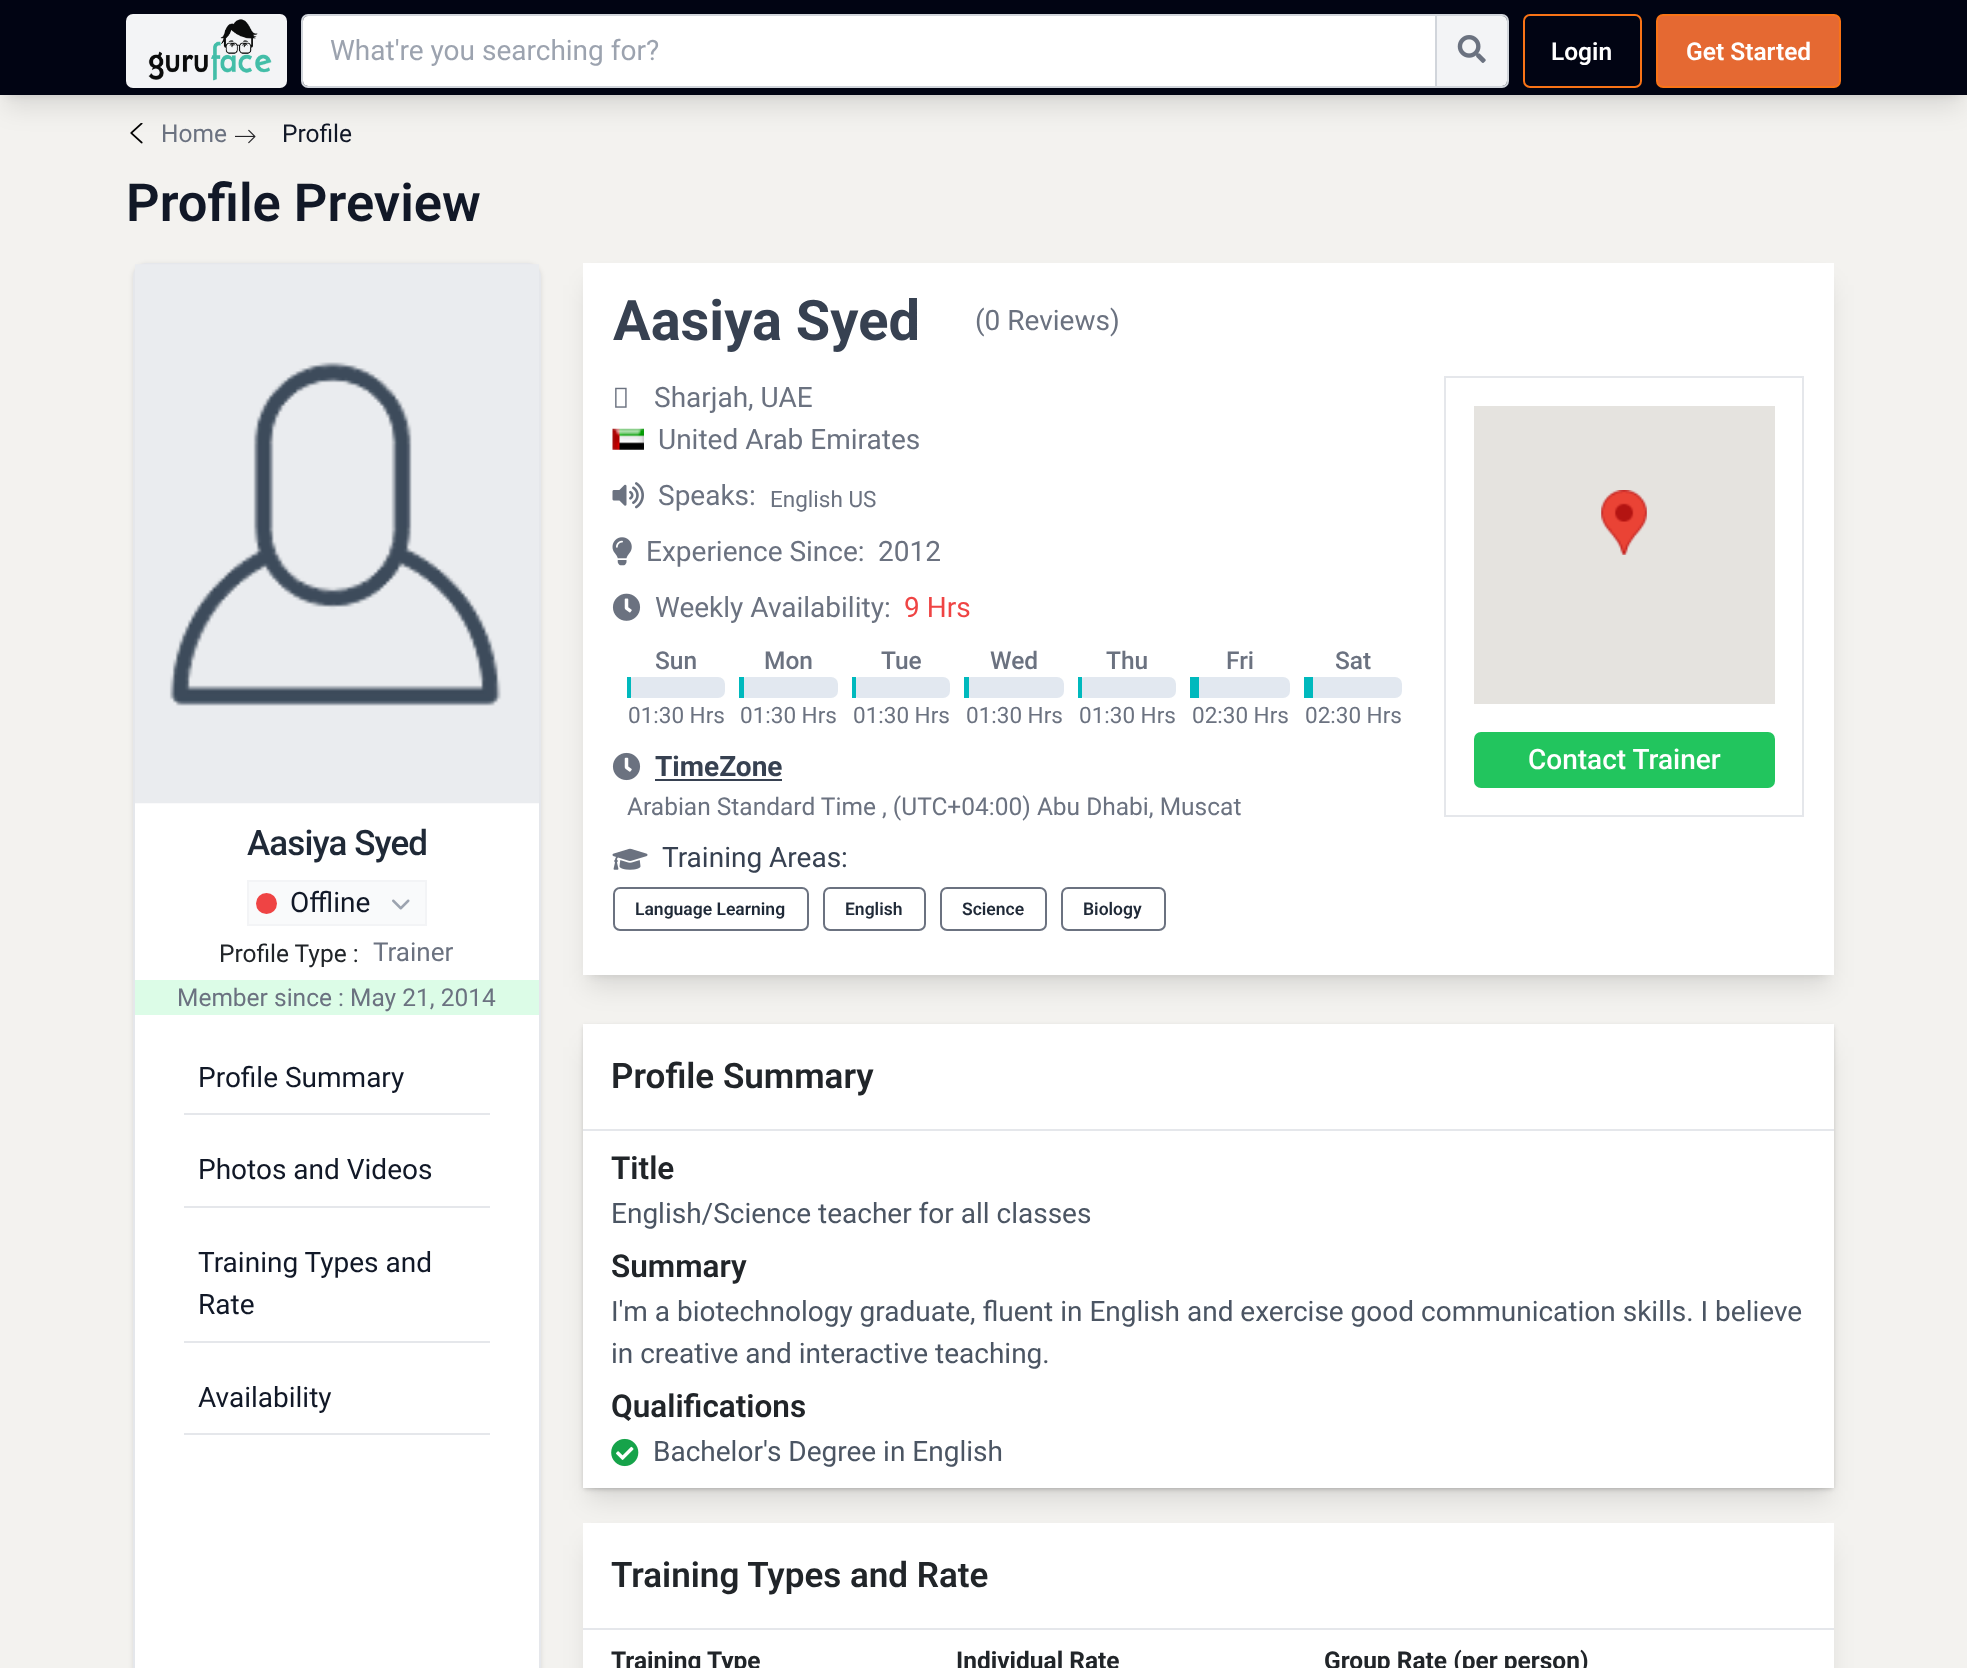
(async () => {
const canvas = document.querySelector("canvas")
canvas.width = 1967
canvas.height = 1668
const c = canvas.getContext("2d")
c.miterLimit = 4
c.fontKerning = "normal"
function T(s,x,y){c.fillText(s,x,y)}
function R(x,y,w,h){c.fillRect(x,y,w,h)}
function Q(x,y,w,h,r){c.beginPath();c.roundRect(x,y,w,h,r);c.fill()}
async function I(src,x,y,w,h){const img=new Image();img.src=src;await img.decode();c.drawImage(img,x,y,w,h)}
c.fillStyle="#f3f2ef"
R(0,0,1967,1668)
c.fillStyle="#0000001a"
c.filter="blur(5px)"
c.beginPath()
c.rect(7,14,1953,81)
c.fill()
c.filter="none"
await I("3.png",130,123,13,21)
await I("4.png",235,129,21,15)
c.filter="blur(13px)"
c.beginPath()
c.rect(5,23,1957,84)
c.fill()
c.filter="none"
c.fillStyle="#010413"
R(0,0,1967,95)
c.fillStyle="#f3f4f6"
Q(126,14,161,74,7)
await I("1.png",148,19,124,62)
c.beginPath()
c.roundRect(302,15,1206,72,6)
c.strokeStyle="#d1d5db"
c.lineWidth=2
c.stroke()
c.fillStyle="#fff"
c.beginPath()
c.roundRect(303,16,1132,70,[5,0,0,5])
c.fill()
c.font="28px Roboto"
c.fillStyle="#9ca3af"
T("What're you searching for?",330,60)
c.fillStyle="#f3f4f6"
c.beginPath()
c.roundRect(1437,16,70,70,[0,5,5,0])
c.fill()
c.fillStyle="#d1d5db"
R(1435,16,2,70)
await I("2.png",1457,35,29,28)
c.beginPath()
c.roundRect(1524,15,117,72,6)
c.strokeStyle="#f97316"
c.stroke()
c.font="600 24.5px Roboto"
c.fillStyle="#fff"
T("Login",1551,60)
c.fillStyle="#e56932"
c.beginPath()
c.roundRect(1657,15,183,72,6)
c.fill()
c.stroke()
c.fillStyle="#fff"
T("Get Started",1686,60)
c.font="24.5px Roboto"
c.fillStyle="#6b7280"
T("Home",161,142)
c.fillStyle="#111827"
T("Profile",282,142)
c.font="600 52.5px Roboto"
T("Profile Preview",126,221)
c.fillStyle="#0000001a"
c.filter="blur(2.5px)"
c.beginPath()
c.roundRect(133,264,408,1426,14)
c.fill()
c.filter="none"
c.fillStyle="#fff"
c.beginPath()
c.roundRect(134,264,406,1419,13)
c.fill()
c.strokeStyle="#e5e7eb"
c.stroke()
await I("5.png",135,264,404,540)
c.letterSpacing="-0.9px"
c.font="500 35px Roboto"
c.fillStyle="#1f2937"
T("Aasiya Syed",247,855)
c.fillStyle="#f9fafb"
c.beginPath()
c.rect(248,881,178,44)
c.fill()
c.strokeStyle="#f3f4f6"
c.stroke()
c.fillStyle="#ef4444"
c.beginPath()
c.arc(266.5,903.5,10.5,0,7)
c.fill()
c.letterSpacing="0px"
c.font="28px Roboto"
c.fillStyle="#111827"
T("Offline",290,912)
await I("6.png",392,899,18,11)
c.font="24.5px Roboto"
c.fillStyle="#212529"
T("Profile Type :",219,962)
c.font="26px Roboto"
c.fillStyle="#6b7280"
T("Trainer",373,961)
c.fillStyle="#dcfce7"
R(135,980,404,35)
c.font="24.5px Roboto"
c.fillStyle="#6b7280"
T("Member since : May 21, 2014",177,1006)
c.fillStyle="#e5e7eb"
R(184,1113,306,2)
c.font="28px Roboto"
c.fillStyle="#111827"
T("Profile Summary",198,1087)
c.fillStyle="#e5e7eb"
R(184,1206,306,2)
c.fillStyle="#111827"
T("Photos and Videos",198,1179)
c.fillStyle="#e5e7eb"
R(184,1341,306,2)
c.fillStyle="#111827"
T("Training Types and",198,1272)
T("Rate",198,1314)
c.fillStyle="#e5e7eb"
R(184,1433,306,2)
c.fillStyle="#111827"
T("Availability",198,1407)
c.fillStyle="#0000001a"
c.filter="blur(5px)"
c.beginPath()
c.rect(590,277,1237,698)
c.fill()
c.filter="none"
c.filter="blur(13px)"
c.beginPath()
c.rect(588,285,1241,702)
c.fill()
c.filter="none"
c.fillStyle="#fff"
R(583,263,1251,712)
c.font="bold 56px Roboto"
c.fillStyle="#374151"
T("Aasiya Syed",613,340)
c.font="28px Roboto"
c.fillStyle="#6b7280"
T("(0 Reviews)",975,330)
await I("7.png",615,387,12,21)
T("Sharjah, UAE",654,407)
await I("8.png",612,428,32,22)
T("United Arab Emirates",658,449)
await I("9.png",612,482,32,27)
T("Speaks:",658,505)
c.font="22.5px Roboto"
T("English US",770,507)
await I("10.png",612,537,20,29)
c.font="28px Roboto"
T("Experience Since:",646,561)
T("2012",878,561)
await I("11.png",612,593,29,28)
T("Weekly Availability:",655,617)
c.fillStyle="#ef4444"
T("9 Hrs",904,617)
c.font="500 24.5px Roboto"
c.fillStyle="#6b7280"
T("Sun",655,669)
c.fillStyle="#e2e8f0"
Q(627,677,98,21,7)
c.fillStyle="#00b9bd"
R(627,677,4,21)
c.font="22.5px Roboto"
c.fillStyle="#6b7280"
T("01:30 Hrs",628,723)
c.font="500 24.5px Roboto"
T("Mon",764,669)
c.fillStyle="#e2e8f0"
Q(739,677,99,21,7)
c.fillStyle="#00b9bd"
R(739,677,5,21)
c.font="22.5px Roboto"
c.fillStyle="#6b7280"
T("01:30 Hrs",740,723)
c.font="500 24.5px Roboto"
T("Tue",881,669)
c.fillStyle="#e2e8f0"
Q(852,677,98,21,7)
c.fillStyle="#00b9bd"
R(852,677,4,21)
c.font="22.5px Roboto"
c.fillStyle="#6b7280"
T("01:30 Hrs",853,723)
c.font="500 24.5px Roboto"
T("Wed",990,669)
c.fillStyle="#e2e8f0"
Q(964,677,100,21,7)
c.fillStyle="#00b9bd"
R(964,677,5,21)
c.font="22.5px Roboto"
c.fillStyle="#6b7280"
T("01:30 Hrs",966,723)
c.font="500 24.5px Roboto"
T("Thu",1106,669)
c.fillStyle="#e2e8f0"
Q(1078,677,98,21,7)
c.fillStyle="#00b9bd"
R(1078,677,4,21)
c.font="22.5px Roboto"
c.fillStyle="#6b7280"
T("01:30 Hrs",1079,723)
c.font="500 24.5px Roboto"
T("Fri",1226,669)
c.fillStyle="#e2e8f0"
Q(1190,677,100,21,7)
c.fillStyle="#00b9bd"
R(1190,677,9,21)
c.font="22.5px Roboto"
c.fillStyle="#6b7280"
T("02:30 Hrs",1192,723)
c.font="500 24.5px Roboto"
T("Sat",1335,669)
c.fillStyle="#e2e8f0"
Q(1304,677,98,21,7)
c.fillStyle="#00b9bd"
R(1304,677,9,21)
c.font="22.5px Roboto"
c.fillStyle="#6b7280"
T("02:30 Hrs",1305,723)
await I("12.png",612,752,29,29)
c.font="bold 28px Roboto"
c.fillStyle="#374151"
T("TimeZone",655,776)
R(655,779,127,2)
c.font="24.5px Roboto"
c.fillStyle="#6b7280"
T("Arabian Standard Time , (UTC+04:00) Abu Dhabi, Muscat",627,815)
await I("13.png",612,848,36,22)
c.font="28px Roboto"
c.fillStyle="#374151"
T("Training Areas:",662,867)
c.beginPath()
c.roundRect(614,888,194,42,6)
c.strokeStyle="#6b7280"
c.stroke()
c.font="600 17.5px Roboto"
c.fillStyle="#1f2937"
T("Language Learning",635,915)
c.beginPath()
c.roundRect(824,888,101,42,6)
c.stroke()
T("English",845,915)
c.beginPath()
c.roundRect(941,888,105,42,6)
c.stroke()
T("Science",962,915)
c.beginPath()
c.roundRect(1062,888,103,42,6)
c.stroke()
T("Biology",1083,915)
c.strokeStyle="#e5e7eb"
c.strokeRect(1445,377,358,439)
c.fillStyle="#e5e3df"
R(1474,406,301,298)
await I("14.png",1601,490,46,65)
c.fillStyle="#22c55e"
Q(1474,732,301,56,7)
c.font="500 28px Roboto"
c.fillStyle="#fff"
T("Contact Trainer",1528,769)
c.fillStyle="#0000001a"
c.filter="blur(5px)"
c.beginPath()
c.rect(590,1038,1237,450)
c.fill()
c.filter="none"
c.filter="blur(13px)"
c.beginPath()
c.rect(588,1047,1241,453)
c.fill()
c.filter="none"
c.filter="blur(2px)"
c.beginPath()
c.rect(585,1027,1247,461)
c.fill()
c.filter="none"
c.filter="blur(2.5px)"
c.beginPath()
c.rect(583,1026,1251,463)
c.fill()
c.filter="none"
c.fillStyle="#fff"
R(583,1024,1251,464)
c.fillStyle="#e5e7eb"
R(583,1129,1251,2)
c.font="600 35px Roboto"
c.fillStyle="#212529"
T("Profile Summary",611,1088)
c.font="600 31.5px Roboto"
T("Title",611,1179)
c.font="28px Roboto"
c.fillStyle="#4b5563"
T("English/Science teacher for all classes",611,1223)
c.font="600 31.5px Roboto"
c.fillStyle="#212529"
T("Summary",611,1277)
c.font="28px Roboto"
c.fillStyle="#4b5563"
T("I'm a biotechnology graduate, fluent in English and exercise good communication skills. I believe",611,1321)
T("in creative and interactive teaching.",611,1363)
c.font="600 31.5px Roboto"
c.fillStyle="#212529"
T("Qualifications",611,1417)
await I("15.png",611,1438,28,29)
c.font="28px Roboto"
c.fillStyle="#4b5563"
T("Bachelor's Degree in English",653,1461)
c.fillStyle="#0000001a"
c.filter="blur(13px)"
c.beginPath()
c.rect(588,1545,1241,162)
c.fill()
c.filter="none"
c.fillStyle="#fff"
R(583,1523,1251,145)
c.fillStyle="#e5e7eb"
R(583,1628,1251,2)
c.font="600 35px Roboto"
c.fillStyle="#212529"
T("Training Types and Rate",611,1587)
c.font="bold 24.5px Roboto"
T("Training Type",611,1669)
T("Individual Rate",956,1669)
T("Group Rate (per person)",1324,1669)
})()
